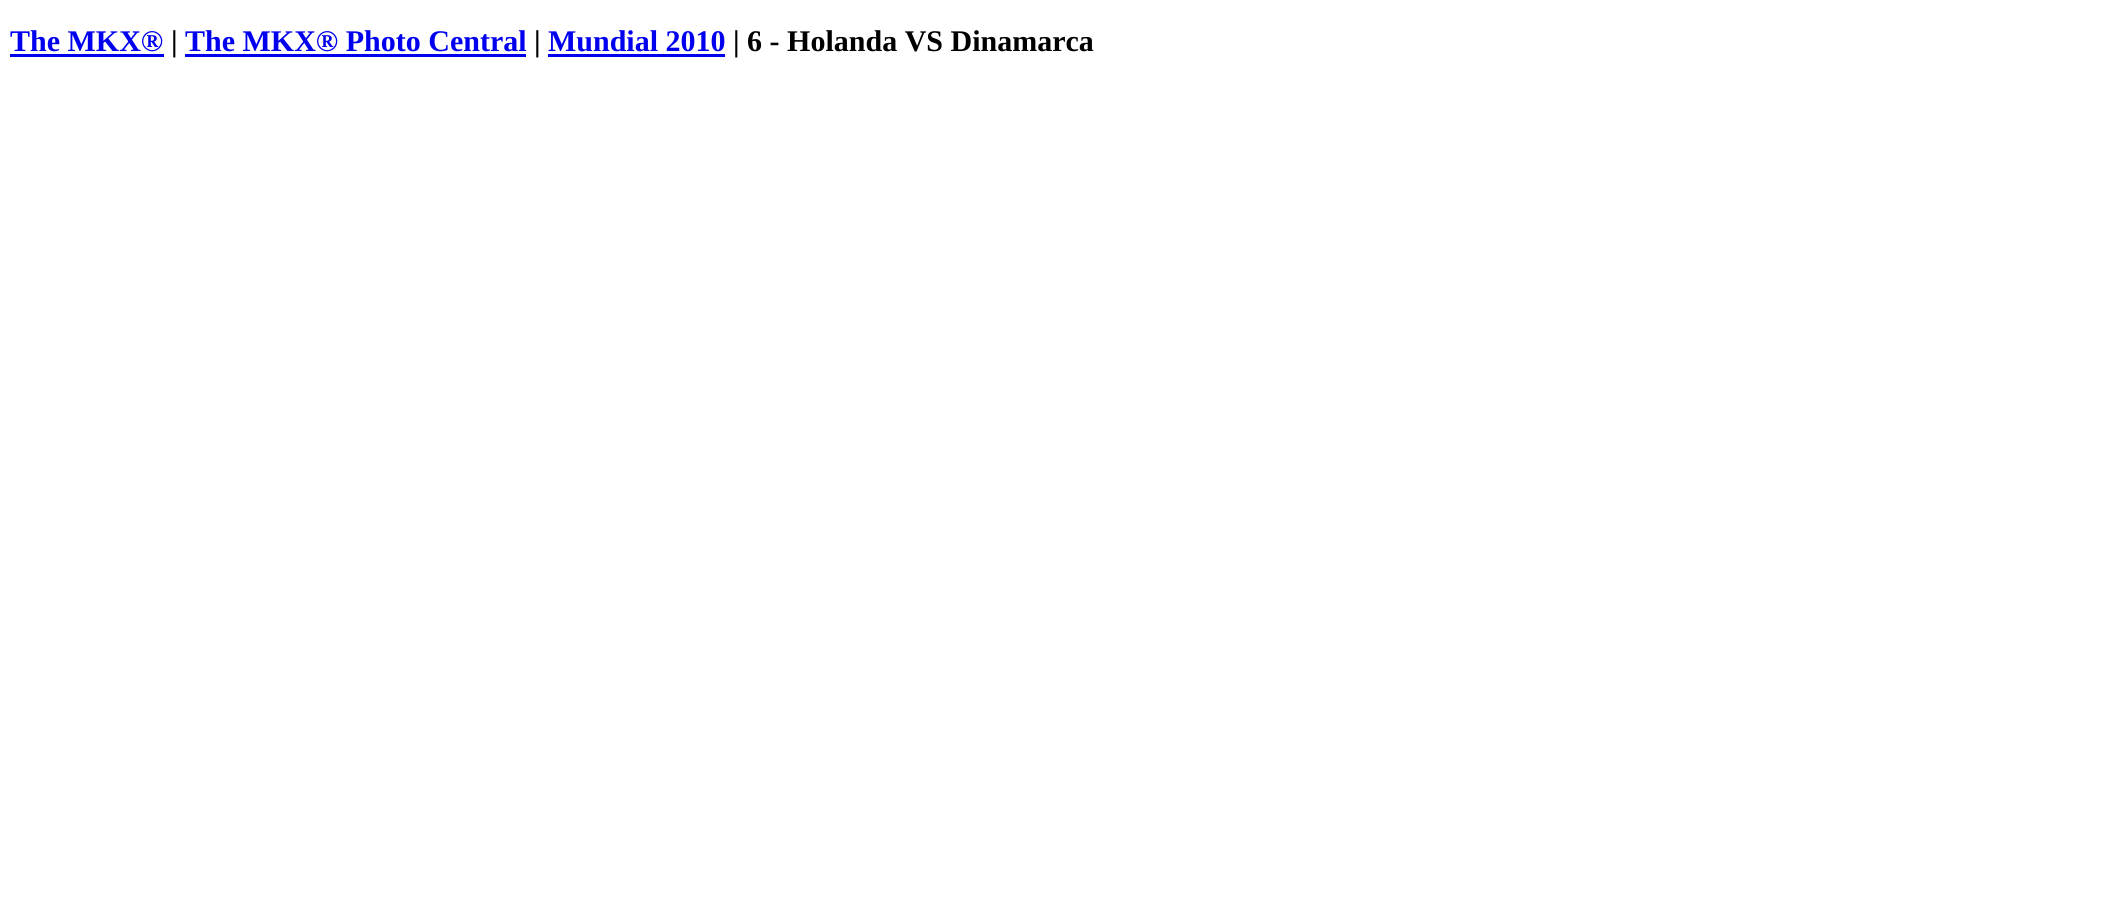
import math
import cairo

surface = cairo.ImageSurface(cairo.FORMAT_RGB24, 2106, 903)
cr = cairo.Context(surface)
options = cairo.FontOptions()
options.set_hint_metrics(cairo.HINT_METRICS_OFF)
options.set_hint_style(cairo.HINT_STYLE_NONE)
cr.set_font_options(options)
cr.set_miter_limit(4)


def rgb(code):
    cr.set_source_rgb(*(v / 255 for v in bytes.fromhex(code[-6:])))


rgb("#ffffff")
cr.paint()
for x, y, w, h, color in [
    (10, 54, 154, 3, "#0000ee"),
    (185, 54, 341, 3, "#0000ee"),
    (548, 54, 177, 3, "#0000ee"),
]:
    rgb(color)
    cr.rectangle(x, y, w, h)
    cr.fill()
cr.select_font_face("Liberation Serif", cairo.FONT_SLANT_NORMAL, cairo.FONT_WEIGHT_BOLD)
cr.set_font_size(30)
cr.move_to(10, 51)
cr.show_text("The MKX®")
rgb("#000000")
cr.move_to(171, 51)
cr.show_text("|")
rgb("#0000ee")
cr.move_to(185, 51)
cr.show_text("The MKX® Photo Central")
rgb("#000000")
cr.move_to(534, 51)
cr.show_text("|")
rgb("#0000ee")
cr.move_to(548, 51)
cr.show_text("Mundial 2010")
rgb("#000000")
cr.move_to(733, 51)
cr.show_text("| 6 - Holanda VS Dinamarca")
surface.write_to_png("page.png")
